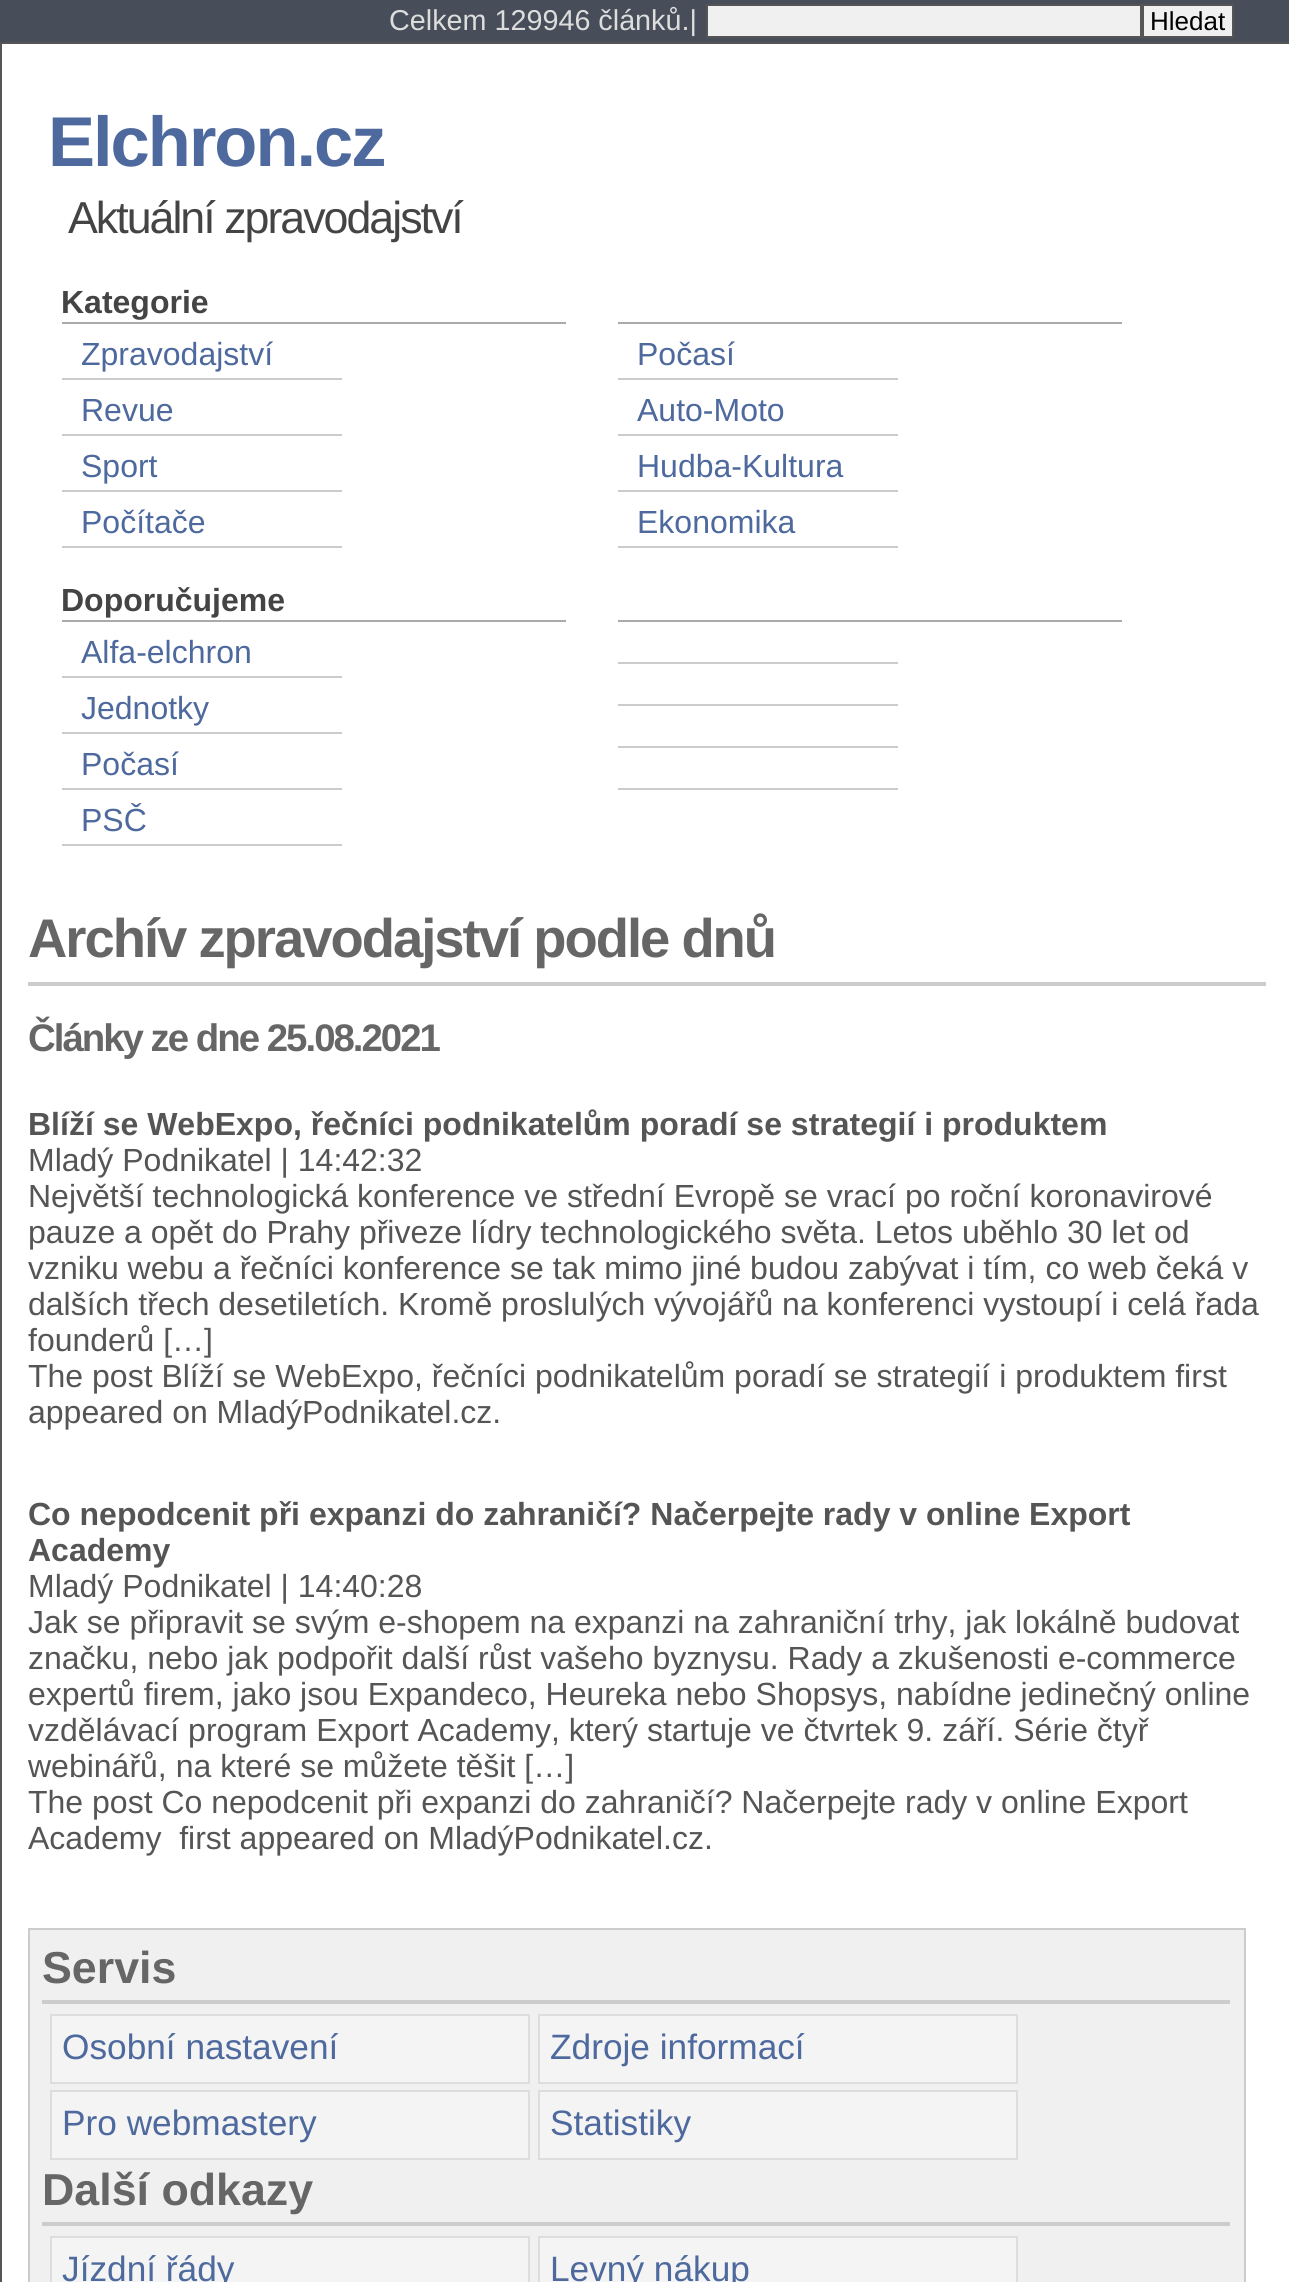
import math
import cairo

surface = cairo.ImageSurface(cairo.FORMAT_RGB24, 1289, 2282)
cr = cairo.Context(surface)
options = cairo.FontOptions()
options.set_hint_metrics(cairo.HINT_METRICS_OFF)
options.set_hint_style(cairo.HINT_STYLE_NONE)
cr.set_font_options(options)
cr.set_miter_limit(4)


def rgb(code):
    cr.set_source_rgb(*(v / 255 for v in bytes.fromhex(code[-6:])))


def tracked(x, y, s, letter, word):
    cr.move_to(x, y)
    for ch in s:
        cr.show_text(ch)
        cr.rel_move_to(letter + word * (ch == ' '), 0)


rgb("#474d59")
cr.paint()
rgb("#f0f0f0")
cr.rectangle(707, 5, 434, 32)
cr.fill_preserve()
rgb("#555555")
cr.stroke()
rgb("#f0f0f0")
cr.rectangle(1143, 5, 90, 32)
cr.fill_preserve()
rgb("#555555")
cr.stroke()
rgb("#ffffff")
cr.rectangle(1, 43, 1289, 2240)
cr.fill_preserve()
rgb("#555555")
cr.stroke()
for x, y, w, h, color in [
    (62, 322, 504, 2, "#aaaaaa"),
    (62, 378, 280, 2, "#cccccc"),
    (62, 434, 280, 2, "#cccccc"),
    (62, 490, 280, 2, "#cccccc"),
    (62, 546, 280, 2, "#cccccc"),
    (618, 322, 504, 2, "#aaaaaa"),
    (618, 378, 280, 2, "#cccccc"),
    (618, 434, 280, 2, "#cccccc"),
    (618, 490, 280, 2, "#cccccc"),
    (618, 546, 280, 2, "#cccccc"),
    (62, 620, 504, 2, "#aaaaaa"),
    (62, 676, 280, 2, "#cccccc"),
    (62, 732, 280, 2, "#cccccc"),
    (62, 788, 280, 2, "#cccccc"),
    (62, 844, 280, 2, "#cccccc"),
    (618, 620, 504, 2, "#aaaaaa"),
    (618, 662, 280, 2, "#cccccc"),
    (618, 704, 280, 2, "#cccccc"),
    (618, 746, 280, 2, "#cccccc"),
    (618, 788, 280, 2, "#cccccc"),
    (28, 982, 1238, 4, "#cccccc"),
]:
    rgb(color)
    cr.rectangle(x, y, w, h)
    cr.fill()
rgb("#f0f0f0")
cr.rectangle(29, 1929, 1216, 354)
cr.fill_preserve()
rgb("#cccccc")
cr.stroke()
cr.rectangle(42, 2000, 1188, 4)
cr.fill()
rgb("#f4f4f4")
cr.rectangle(51, 2015, 478, 68)
cr.fill_preserve()
rgb("#dddddd")
cr.stroke()
rgb("#f4f4f4")
cr.rectangle(539, 2015, 478, 68)
cr.fill_preserve()
rgb("#dddddd")
cr.stroke()
rgb("#f4f4f4")
cr.rectangle(51, 2091, 478, 68)
cr.fill_preserve()
rgb("#dddddd")
cr.stroke()
rgb("#f4f4f4")
cr.rectangle(539, 2091, 478, 68)
cr.fill_preserve()
rgb("#dddddd")
cr.stroke()
rgb("#cccccc")
cr.rectangle(42, 2222, 1188, 4)
cr.fill()
rgb("#f4f4f4")
cr.rectangle(51, 2237, 478, 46)
cr.fill_preserve()
rgb("#dddddd")
cr.stroke()
rgb("#f4f4f4")
cr.rectangle(539, 2237, 478, 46)
cr.fill_preserve()
rgb("#dddddd")
cr.stroke()
cr.select_font_face("Liberation Sans")
cr.set_font_size(28.75)
cr.move_to(389, 30)
cr.show_text("Celkem 129946 článků.|")
cr.set_font_size(26)
rgb("#000000")
cr.move_to(1150, 30)
cr.show_text("Hledat")
cr.select_font_face("Liberation Sans", cairo.FONT_SLANT_NORMAL, cairo.FONT_WEIGHT_BOLD)
cr.set_font_size(70.5)
rgb("#4d699d")
tracked(48, 166, "Elchron.cz", -2, 0)
cr.select_font_face("Liberation Sans")
cr.set_font_size(44.75)
rgb("#444444")
tracked(68, 233, "Aktuální zpravodajství", -2, 0)
cr.select_font_face("Liberation Sans", cairo.FONT_SLANT_NORMAL, cairo.FONT_WEIGHT_BOLD)
cr.set_font_size(32)
cr.move_to(61, 313)
cr.show_text("Kategorie")
cr.select_font_face("Liberation Sans")
rgb("#4d699d")
for x, y, s in [
    (81, 365, "Zpravodajství"),
    (81, 421, "Revue"),
    (81, 477, "Sport"),
    (81, 533, "Počítače"),
    (637, 365, "Počasí"),
    (637, 421, "Auto-Moto"),
    (637, 477, "Hudba-Kultura"),
    (637, 533, "Ekonomika"),
]:
    cr.move_to(x, y)
    cr.show_text(s)
cr.select_font_face("Liberation Sans", cairo.FONT_SLANT_NORMAL, cairo.FONT_WEIGHT_BOLD)
rgb("#444444")
cr.move_to(61, 611)
cr.show_text("Doporučujeme")
cr.select_font_face("Liberation Sans")
rgb("#4d699d")
for x, y, s in [
    (81, 663, "Alfa-elchron"),
    (81, 719, "Jednotky"),
    (81, 775, "Počasí"),
    (81, 831, "PSČ"),
]:
    cr.move_to(x, y)
    cr.show_text(s)
cr.select_font_face("Liberation Sans", cairo.FONT_SLANT_NORMAL, cairo.FONT_WEIGHT_BOLD)
cr.set_font_size(54.4)
rgb("#666666")
tracked(28, 957, "Archív zpravodajství podle dnů", -2, 0)
cr.set_font_size(38.4)
tracked(28, 1051, "Články ze dne 25.08.2021", -2, 0)
cr.set_font_size(32)
rgb("#555555")
cr.move_to(28, 1135)
cr.show_text("Blíží se WebExpo, řečníci podnikatelům poradí se strategií i produktem")
cr.select_font_face("Liberation Sans")
for x, y, s in [
    (28, 1171, "Mladý Podnikatel | 14:42:32"),
    (28, 1207, "Největší technologická konference ve střední Evropě se vrací po roční koronavirové"),
    (28, 1243, "pauze a opět do Prahy přiveze lídry technologického světa. Letos uběhlo 30 let od"),
    (28, 1279, "vzniku webu a řečníci konference se tak mimo jiné budou zabývat i tím, co web čeká v"),
    (28, 1315, "dalších třech desetiletích. Kromě proslulých vývojářů na konferenci vystoupí i celá řada"),
    (28, 1351, "founderů […]"),
    (28, 1387, "The post Blíží se WebExpo, řečníci podnikatelům poradí se strategií i produktem first"),
    (28, 1423, "appeared on MladýPodnikatel.cz."),
]:
    cr.move_to(x, y)
    cr.show_text(s)
cr.select_font_face("Liberation Sans", cairo.FONT_SLANT_NORMAL, cairo.FONT_WEIGHT_BOLD)
cr.move_to(28, 1525)
cr.show_text("Co nepodcenit při expanzi do zahraničí? Načerpejte rady v online Export")
cr.move_to(28, 1561)
cr.show_text("Academy")
cr.select_font_face("Liberation Sans")
for x, y, s in [
    (28, 1597, "Mladý Podnikatel | 14:40:28"),
    (28, 1633, "Jak se připravit se svým e-shopem na expanzi na zahraniční trhy, jak lokálně budovat"),
    (28, 1669, "značku, nebo jak podpořit další růst vašeho byznysu. Rady a zkušenosti e-commerce"),
    (28, 1705, "expertů firem, jako jsou Expandeco, Heureka nebo Shopsys, nabídne jedinečný online"),
    (28, 1741, "vzdělávací program Export Academy, který startuje ve čtvrtek 9. září. Série čtyř"),
    (28, 1777, "webinářů, na které se můžete těšit […]"),
    (28, 1813, "The post Co nepodcenit při expanzi do zahraničí? Načerpejte rady v online Export"),
    (28, 1849, "Academy  first appeared on MladýPodnikatel.cz."),
]:
    cr.move_to(x, y)
    cr.show_text(s)
cr.select_font_face("Liberation Sans", cairo.FONT_SLANT_NORMAL, cairo.FONT_WEIGHT_BOLD)
cr.set_font_size(44.75)
rgb("#666666")
cr.move_to(42, 1983)
cr.show_text("Servis")
cr.select_font_face("Liberation Sans")
cr.set_font_size(35.25)
rgb("#4d699d")
for x, y, s in [
    (62, 2059, "Osobní nastavení"),
    (550, 2059, "Zdroje informací"),
    (62, 2135, "Pro webmastery"),
    (550, 2135, "Statistiky"),
]:
    cr.move_to(x, y)
    cr.show_text(s)
cr.select_font_face("Liberation Sans", cairo.FONT_SLANT_NORMAL, cairo.FONT_WEIGHT_BOLD)
cr.set_font_size(44.75)
rgb("#666666")
cr.move_to(42, 2205)
cr.show_text("Další odkazy")
cr.select_font_face("Liberation Sans")
cr.set_font_size(35.25)
rgb("#4d699d")
cr.move_to(62, 2281)
cr.show_text("Jízdní řády")
cr.move_to(550, 2281)
cr.show_text("Levný nákup")
surface.write_to_png("page.png")
